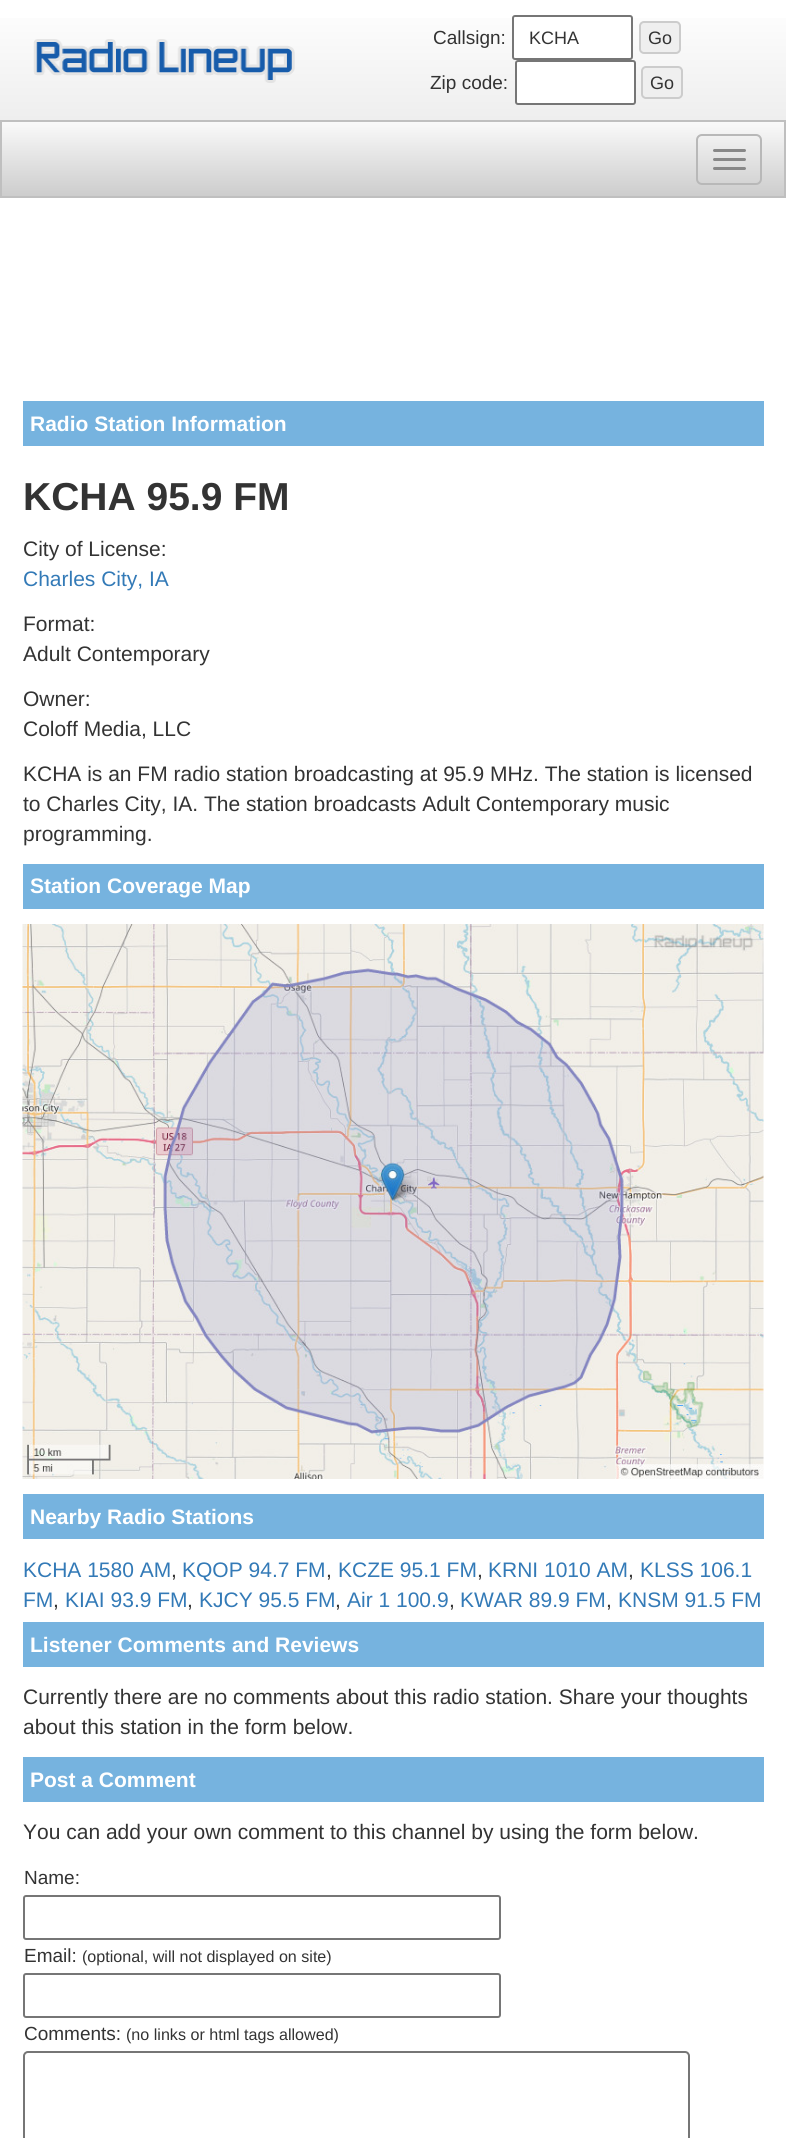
import math
import cairo

surface = cairo.ImageSurface(cairo.FORMAT_RGB24, 786, 2138)
cr = cairo.Context(surface)
options = cairo.FontOptions()
options.set_hint_metrics(cairo.HINT_METRICS_OFF)
options.set_hint_style(cairo.HINT_STYLE_NONE)
cr.set_font_options(options)
cr.set_miter_limit(4)


def rgb(code):
    cr.set_source_rgb(*(v / 255 for v in bytes.fromhex(code[-6:])))


def rrect(x, y, w, h, r):
    cr.new_sub_path()
    for i, (u, v) in enumerate([(x + w - r, y + h - r), (x + r, y + h - r), (x + r, y + r), (x + w - r, y + r)]):
        cr.arc(u, v, r, i * math.pi / 2, (i + 1) * math.pi / 2)
    cr.close_path()


def image(path, x, y, w, h):
    cr.save()
    cr.set_source_surface(cairo.ImageSurface.create_from_png(path), x, y)
    cr.rectangle(x, y, w, h)
    cr.fill()
    cr.restore()


rgb("#ffffff")
cr.paint()
gradient = cairo.LinearGradient(393, 0, 393, 120)
gradient.add_color_stop_rgba(0, 1, 1, 1, 1)
gradient.add_color_stop_rgba(1, 0.933, 0.933, 0.933, 1)
cr.set_source(gradient)
cr.rectangle(0, 18, 786, 102)
cr.fill()
image("img/1.png", 33, 39, 262, 44)
rgb("#ffffff")
rrect(513, 16, 119, 43, 2)
cr.fill_preserve()
rgb("#767676")
cr.stroke()
rgb("#efefef")
rrect(640, 22, 40, 31, 4)
cr.fill_preserve()
rgb("#cccccc")
cr.stroke()
rgb("#ffffff")
rrect(516, 61, 119, 43, 2)
cr.fill_preserve()
rgb("#767676")
cr.stroke()
rgb("#efefef")
rrect(642, 67, 40, 31, 4)
cr.fill_preserve()
rgb("#cccccc")
cr.stroke()
gradient = cairo.LinearGradient(393, 121, 393, 197)
gradient.add_color_stop_rgba(0, 0.98, 0.98, 0.98, 1)
gradient.add_color_stop_rgba(1, 0.8, 0.8, 0.8, 1)
cr.set_source(gradient)
cr.rectangle(2, 122, 782, 74)
cr.fill()
cr.rectangle(1, 121, 784, 76)
rgb("#bfbfbf")
cr.stroke()
rrect(697, 135, 64, 49, 5)
rgb("#b8b8b8")
cr.stroke()
rgb("#888888")
rrect(713, 149, 33, 3, 1.5)
cr.fill()
rrect(713, 158, 33, 3, 1.5)
cr.fill()
rrect(713, 167, 33, 3, 1.5)
cr.fill()
rgb("#76b3df")
cr.rectangle(23, 401, 741, 45)
cr.fill()
cr.rectangle(23, 864, 741, 45)
cr.fill()
image("img/2.png", 22, 924, 742, 555)
for x, y, w, h, color in [
    (23, 1494, 741, 45, "#76b3df"),
    (23, 1622, 741, 45, "#76b3df"),
    (23, 1757, 741, 45, "#76b3df"),
]:
    rgb(color)
    cr.rectangle(x, y, w, h)
    cr.fill()
rrect(24, 1896, 476, 43, 2)
rgb("#767676")
cr.stroke()
rrect(24, 1974, 476, 43, 2)
cr.stroke()
rrect(24, 2052, 665, 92, 4)
cr.stroke()
cr.select_font_face("Liberation Sans")
cr.set_font_size(19)
rgb("#333333")
cr.move_to(433, 44)
cr.show_text("Callsign:")
cr.set_font_size(18)
cr.move_to(529, 44)
cr.show_text("KCHA")
cr.move_to(648, 44)
cr.show_text("Go")
cr.set_font_size(19)
cr.move_to(430, 89)
cr.show_text("Zip code:")
cr.set_font_size(18)
cr.move_to(650, 89)
cr.show_text("Go")
cr.select_font_face("Liberation Sans", cairo.FONT_SLANT_NORMAL, cairo.FONT_WEIGHT_BOLD)
cr.set_font_size(21)
rgb("#ffffff")
cr.move_to(30, 431)
cr.show_text("Radio Station Information")
cr.set_font_size(39)
rgb("#333333")
cr.move_to(23, 510)
cr.show_text("KCHA 95.9 FM")
cr.select_font_face("Liberation Sans")
cr.set_font_size(21)
cr.move_to(23, 556)
cr.show_text("City of License:")
rgb("#337ab7")
cr.move_to(23, 586)
cr.show_text("Charles City, IA")
rgb("#333333")
for x, y, s in [
    (23, 631, "Format:"),
    (23, 661, "Adult Contemporary"),
    (23, 706, "Owner:"),
    (23, 736, "Coloff Media, LLC"),
    (23, 781, "KCHA is an FM radio station broadcasting at 95.9 MHz. The station is licensed"),
    (23, 811, "to Charles City, IA. The station broadcasts Adult Contemporary music"),
    (23, 841, "programming."),
]:
    cr.move_to(x, y)
    cr.show_text(s)
cr.select_font_face("Liberation Sans", cairo.FONT_SLANT_NORMAL, cairo.FONT_WEIGHT_BOLD)
rgb("#ffffff")
cr.move_to(30, 893)
cr.show_text("Station Coverage Map")
cr.move_to(30, 1524)
cr.show_text("Nearby Radio Stations")
cr.select_font_face("Liberation Sans")
rgb("#337ab7")
cr.move_to(23, 1577)
cr.show_text("KCHA 1580 AM")
rgb("#333333")
cr.move_to(171, 1577)
cr.show_text(",")
rgb("#337ab7")
cr.move_to(182, 1577)
cr.show_text("KQOP 94.7 FM")
rgb("#333333")
cr.move_to(326, 1577)
cr.show_text(",")
rgb("#337ab7")
cr.move_to(338, 1577)
cr.show_text("KCZE 95.1 FM")
rgb("#333333")
cr.move_to(477, 1577)
cr.show_text(",")
rgb("#337ab7")
cr.move_to(488, 1577)
cr.show_text("KRNI 1010 AM")
rgb("#333333")
cr.move_to(628, 1577)
cr.show_text(",")
rgb("#337ab7")
cr.move_to(640, 1577)
cr.show_text("KLSS 106.1")
cr.move_to(23, 1607)
cr.show_text("FM")
rgb("#333333")
cr.move_to(53, 1607)
cr.show_text(",")
rgb("#337ab7")
cr.move_to(65, 1607)
cr.show_text("KIAI 93.9 FM")
rgb("#333333")
cr.move_to(187, 1607)
cr.show_text(",")
rgb("#337ab7")
cr.move_to(199, 1607)
cr.show_text("KJCY 95.5 FM")
rgb("#333333")
cr.move_to(335, 1607)
cr.show_text(",")
rgb("#337ab7")
cr.move_to(347, 1607)
cr.show_text("Air 1 100.9")
rgb("#333333")
cr.move_to(449, 1607)
cr.show_text(",")
rgb("#337ab7")
cr.move_to(460, 1607)
cr.show_text("KWAR 89.9 FM")
rgb("#333333")
cr.move_to(606, 1607)
cr.show_text(",")
rgb("#337ab7")
cr.move_to(618, 1607)
cr.show_text("KNSM 91.5 FM")
cr.select_font_face("Liberation Sans", cairo.FONT_SLANT_NORMAL, cairo.FONT_WEIGHT_BOLD)
rgb("#ffffff")
cr.move_to(30, 1652)
cr.show_text("Listener Comments and Reviews")
cr.select_font_face("Liberation Sans")
rgb("#333333")
cr.move_to(23, 1704)
cr.show_text("Currently there are no comments about this radio station. Share your thoughts")
cr.move_to(23, 1734)
cr.show_text("about this station in the form below.")
cr.select_font_face("Liberation Sans", cairo.FONT_SLANT_NORMAL, cairo.FONT_WEIGHT_BOLD)
rgb("#ffffff")
cr.move_to(30, 1787)
cr.show_text("Post a Comment")
cr.select_font_face("Liberation Sans")
rgb("#333333")
cr.move_to(23, 1839)
cr.show_text("You can add your own comment to this channel by using the form below.")
cr.set_font_size(19)
cr.move_to(24, 1884)
cr.show_text("Name:")
cr.move_to(24, 1962)
cr.show_text("Email:")
cr.set_font_size(16.1)
cr.move_to(82, 1962)
cr.show_text("(optional, will not displayed on site)")
cr.set_font_size(19)
cr.move_to(24, 2040)
cr.show_text("Comments:")
cr.set_font_size(16.1)
cr.move_to(126, 2040)
cr.show_text("(no links or html tags allowed)")
surface.write_to_png("page.png")
